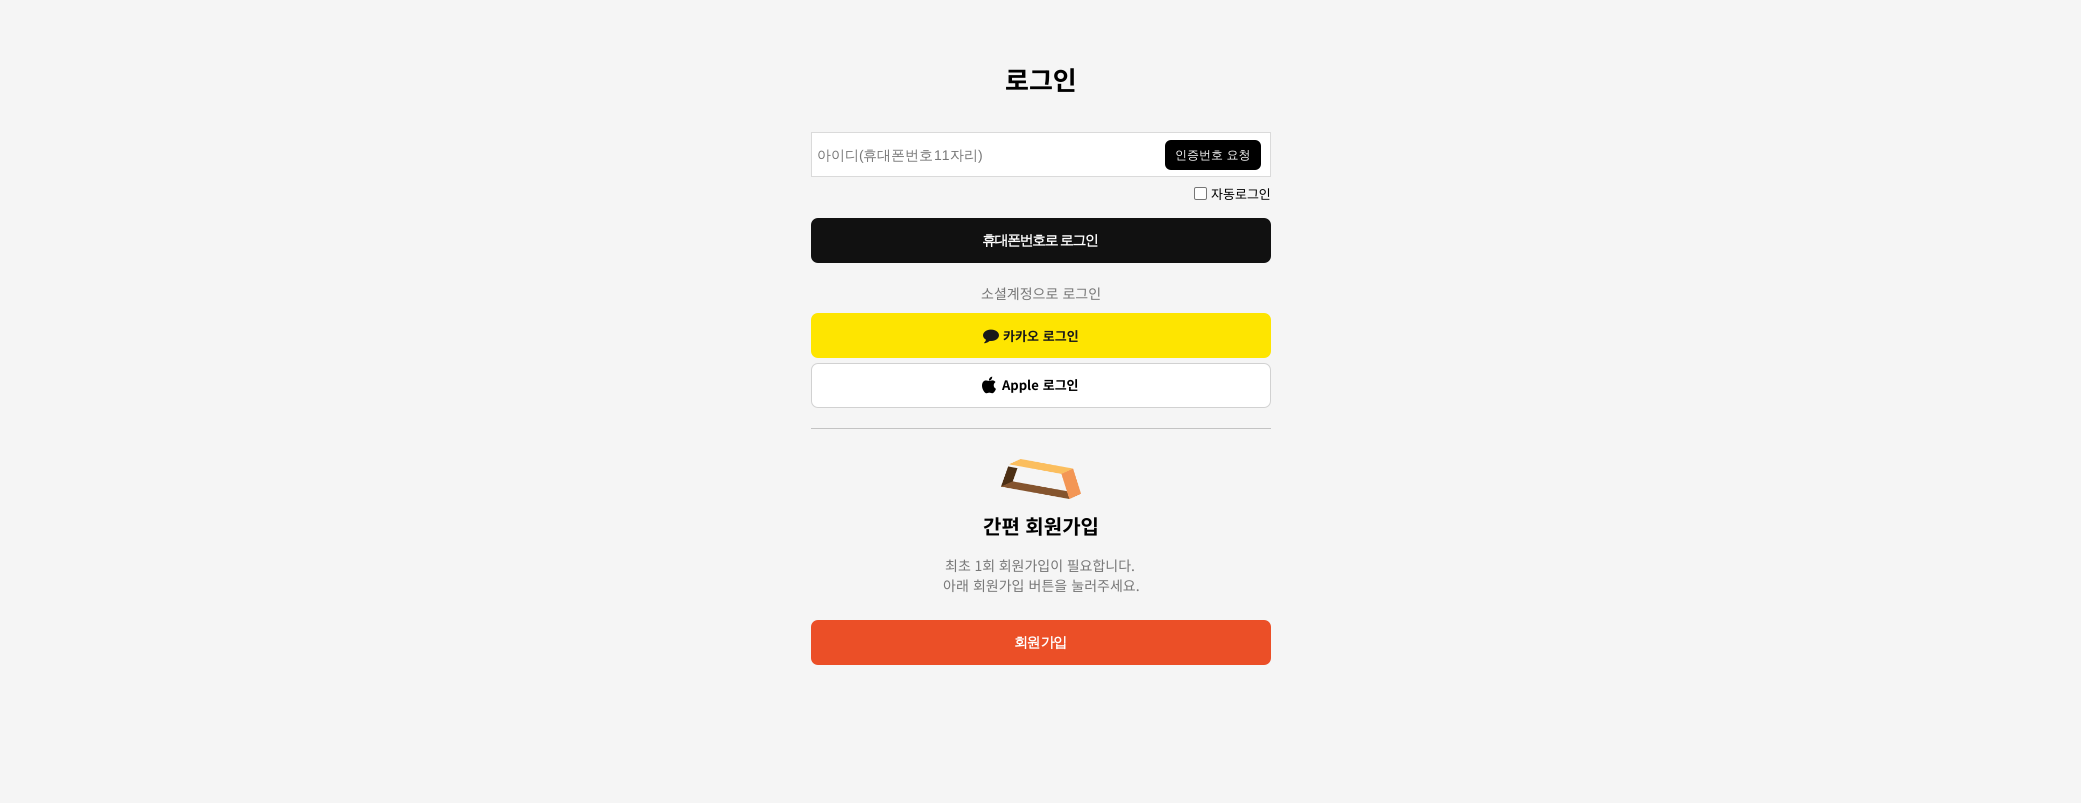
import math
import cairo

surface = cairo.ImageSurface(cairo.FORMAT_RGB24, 2081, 803)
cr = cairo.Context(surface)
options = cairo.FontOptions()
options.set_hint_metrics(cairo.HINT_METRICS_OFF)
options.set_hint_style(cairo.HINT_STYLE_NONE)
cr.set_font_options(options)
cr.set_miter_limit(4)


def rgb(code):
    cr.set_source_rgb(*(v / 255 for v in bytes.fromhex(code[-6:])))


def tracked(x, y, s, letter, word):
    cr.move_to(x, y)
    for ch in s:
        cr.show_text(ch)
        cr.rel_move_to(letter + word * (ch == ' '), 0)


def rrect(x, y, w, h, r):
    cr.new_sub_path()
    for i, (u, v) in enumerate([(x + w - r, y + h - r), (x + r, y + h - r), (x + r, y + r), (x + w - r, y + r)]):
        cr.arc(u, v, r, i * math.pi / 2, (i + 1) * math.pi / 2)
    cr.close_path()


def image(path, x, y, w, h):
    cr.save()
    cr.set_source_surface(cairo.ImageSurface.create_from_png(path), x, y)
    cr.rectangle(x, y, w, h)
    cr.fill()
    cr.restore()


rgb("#f5f5f5")
cr.paint()
rgb("#ffffff")
cr.rectangle(811.5, 132.5, 459, 44)
cr.fill_preserve()
rgb("#dadada")
cr.set_line_width(1)
cr.stroke()
rgb("#000000")
rrect(1165, 140, 96, 30, 6)
cr.fill()
rgb("#ffffff")
rrect(1194.5, 187.5, 12, 12, 1.5)
cr.fill_preserve()
rgb("#767676")
cr.stroke()
rgb("#111111")
rrect(811, 218, 460, 45, 7)
cr.fill()
rgb("#fee500")
rrect(811, 313, 460, 45, 7)
cr.fill()
image("img/1.png", 983, 329, 16, 15)
rgb("#ffffff")
rrect(811.5, 363.5, 459, 44, 6.5)
cr.fill_preserve()
rgb("#d1d1d1")
cr.stroke()
image("img/2.png", 982, 376, 14, 18)
rgb("#c3c3c3")
cr.rectangle(811, 428, 460, 1)
cr.fill()
image("img/3.png", 1001, 459, 80, 40)
rgb("#eb4f27")
rrect(811, 620, 460, 45, 7)
cr.fill()
cr.select_font_face("Noto Sans KR", cairo.FONT_SLANT_NORMAL, cairo.FONT_WEIGHT_BOLD)
cr.set_font_size(26)
rgb("#000000")
cr.move_to(1005, 90)
cr.show_text("로그인")
cr.select_font_face("WenQuanYi Zen Hei Medium")
cr.set_font_size(14)
rgb("#777777")
cr.move_to(817, 160)
cr.show_text("아이디")
cr.select_font_face("Liberation Sans")
cr.move_to(859, 160)
cr.show_text("(")
cr.select_font_face("WenQuanYi Zen Hei Medium")
cr.move_to(863, 160)
cr.show_text("휴대폰번호")
cr.select_font_face("Liberation Sans")
cr.move_to(934, 160)
cr.show_text("11")
cr.select_font_face("WenQuanYi Zen Hei Medium")
cr.move_to(950, 160)
cr.show_text("자리")
cr.select_font_face("Liberation Sans")
cr.move_to(978, 160)
cr.show_text(")")
cr.select_font_face("WenQuanYi Zen Hei Medium")
cr.set_font_size(12)
rgb("#ffffff")
cr.move_to(1175, 159)
cr.show_text("인증번호 요청")
cr.select_font_face("Noto Sans KR")
cr.set_font_size(13)
rgb("#000000")
cr.move_to(1211, 199)
cr.show_text("자동로그인")
cr.select_font_face("WenQuanYi Zen Hei", cairo.FONT_SLANT_NORMAL, cairo.FONT_WEIGHT_BOLD)
cr.set_font_size(14)
rgb("#ffffff")
tracked(982, 245, "휴대폰번호로 로그인", -1.5, 0)
cr.select_font_face("Noto Sans KR")
rgb("#777777")
tracked(981, 299, "소셜계정으로 로그인", 0, 1)
cr.select_font_face("Noto Sans KR", cairo.FONT_SLANT_NORMAL, cairo.FONT_WEIGHT_BOLD)
cr.set_font_size(13)
rgb("#191919")
tracked(1003, 341, "카카오 로그인", 0, 1)
rgb("#000000")
tracked(1002, 390, "Apple 로그인", 0, 1)
cr.set_font_size(20)
tracked(983, 534, "간편 회원가입", 0, 1)
cr.select_font_face("Noto Sans KR")
cr.set_font_size(14)
rgb("#777777")
tracked(945, 571, "최초 1회 회원가입이 필요합니다.", 0, 0.5)
tracked(943, 591, "아래 회원가입 버튼을 눌러주세요.", 0, 1)
cr.select_font_face("WenQuanYi Zen Hei", cairo.FONT_SLANT_NORMAL, cairo.FONT_WEIGHT_BOLD)
rgb("#ffffff")
tracked(1014, 647, "회원 가입", -1.5, -1)
surface.write_to_png("page.png")
